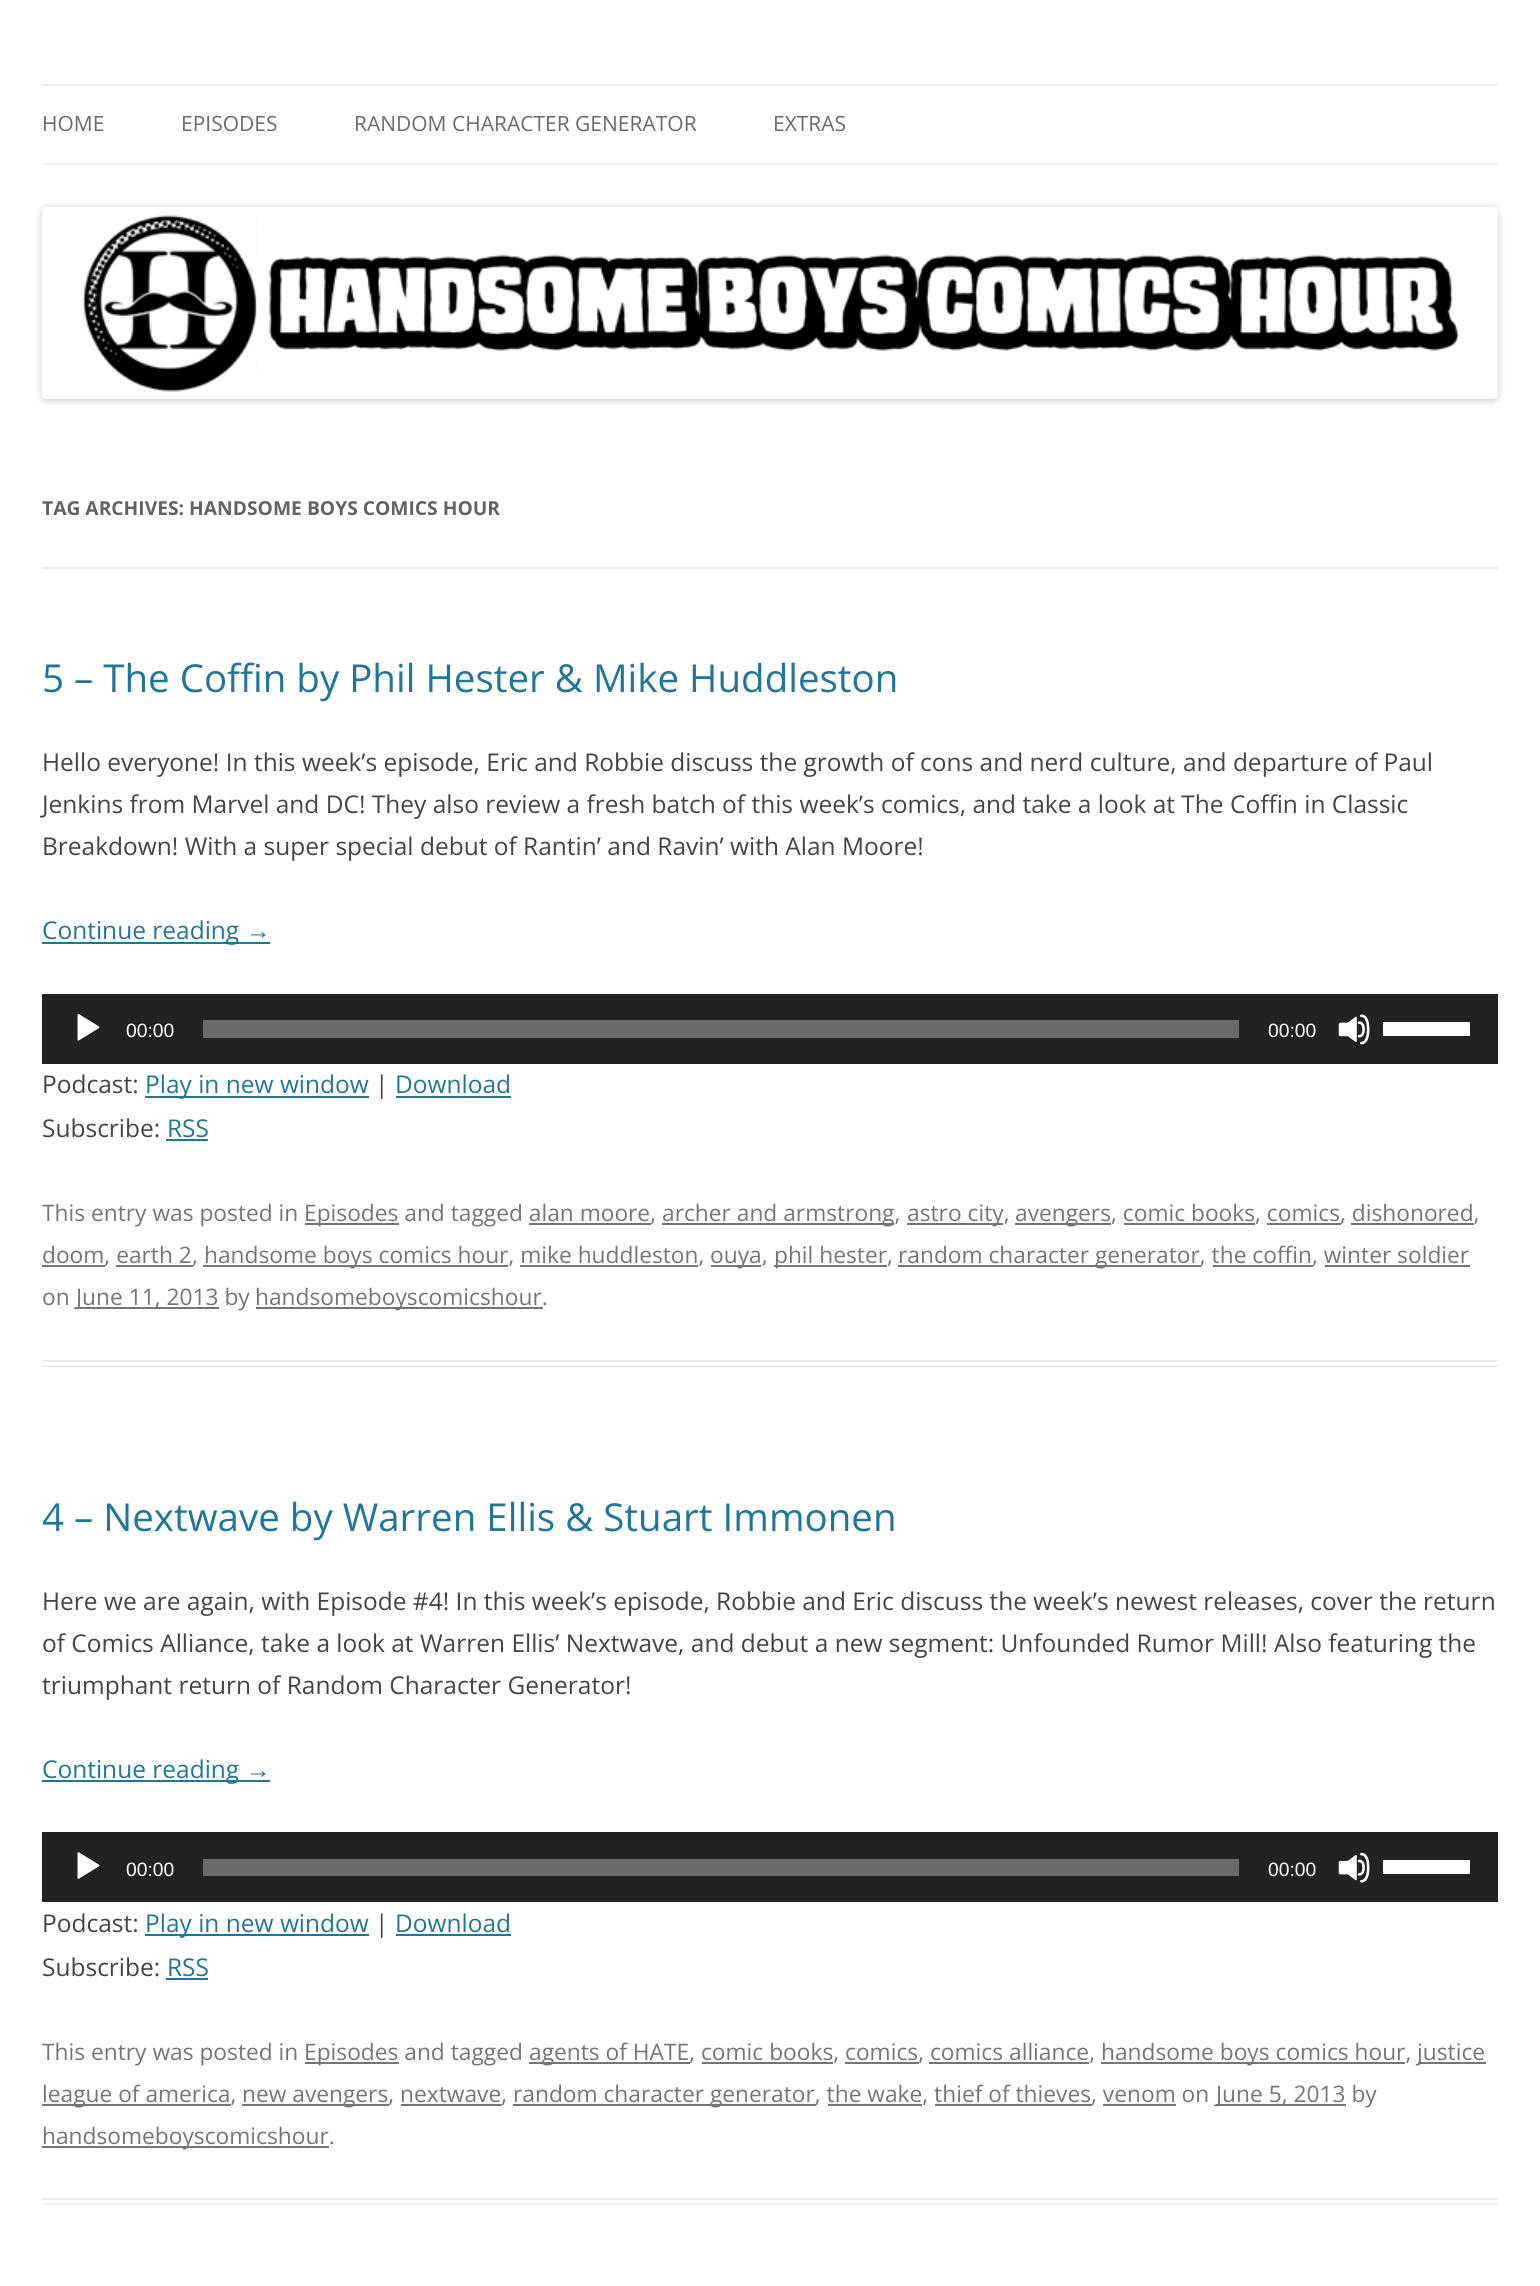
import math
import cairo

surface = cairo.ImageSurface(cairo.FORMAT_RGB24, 1540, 2286)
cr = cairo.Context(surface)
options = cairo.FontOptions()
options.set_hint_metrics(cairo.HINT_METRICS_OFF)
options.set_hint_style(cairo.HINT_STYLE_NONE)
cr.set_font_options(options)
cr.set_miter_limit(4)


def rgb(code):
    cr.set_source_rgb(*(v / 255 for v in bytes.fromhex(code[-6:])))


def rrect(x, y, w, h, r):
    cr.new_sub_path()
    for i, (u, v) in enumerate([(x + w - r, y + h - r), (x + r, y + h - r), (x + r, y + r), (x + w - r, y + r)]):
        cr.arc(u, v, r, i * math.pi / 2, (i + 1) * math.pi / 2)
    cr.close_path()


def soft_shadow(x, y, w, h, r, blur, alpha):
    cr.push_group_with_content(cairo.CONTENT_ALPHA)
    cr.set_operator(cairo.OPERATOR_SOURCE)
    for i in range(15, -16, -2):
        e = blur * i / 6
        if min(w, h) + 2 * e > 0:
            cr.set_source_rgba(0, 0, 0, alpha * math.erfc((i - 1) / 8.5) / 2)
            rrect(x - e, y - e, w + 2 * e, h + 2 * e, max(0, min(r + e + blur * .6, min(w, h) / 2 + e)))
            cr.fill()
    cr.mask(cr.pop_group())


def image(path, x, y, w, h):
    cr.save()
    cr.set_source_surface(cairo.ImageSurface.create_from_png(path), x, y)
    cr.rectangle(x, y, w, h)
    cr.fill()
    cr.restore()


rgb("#ffffff")
cr.paint()
rgb("#ededed")
cr.rectangle(42, 84, 1456, 2)
cr.fill()
cr.rectangle(42, 163, 1456, 2)
cr.fill()
cr.save()
cr.set_fill_rule(cairo.FILL_RULE_EVEN_ODD)
cr.new_path()
cr.move_to(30, 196)
cr.line_to(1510, 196)
cr.line_to(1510, 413)
cr.line_to(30, 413)
cr.close_path()
cr.move_to(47, 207)
cr.line_to(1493, 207)
cr.curve_to(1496, 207, 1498, 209, 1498, 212)
cr.line_to(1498, 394)
cr.curve_to(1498, 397, 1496, 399, 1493, 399)
cr.line_to(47, 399)
cr.curve_to(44, 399, 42, 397, 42, 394)
cr.line_to(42, 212)
cr.curve_to(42, 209, 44, 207, 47, 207)
cr.close_path()
cr.clip()
rgb("#000000")
soft_shadow(42, 208, 1456, 193, 5, 3.5, 0.2)
cr.restore()
image("img/1.png", 42, 215, 1456, 184)
for x, y, w, h, color in [
    (42, 567, 1456, 2, "#ededed"),
    (42, 1360, 1456, 2, "#ededed"),
    (42, 1365, 1456, 2, "#ededed"),
    (42, 942, 228, 2, "#21759b"),
    (42, 994, 1456, 70, "#222222"),
]:
    rgb(color)
    cr.rectangle(x, y, w, h)
    cr.fill()
image("img/2.png", 77, 1013, 23, 28)
rgb("#6b6b6b")
cr.rectangle(203, 1020, 1036, 18)
cr.fill()
image("img/3.png", 1338, 1014, 32, 31)
for x, y, w, h, color in [
    (1383, 1022, 87, 14, "#ffffff"),
    (145, 1096, 224, 2, "#21759b"),
    (396, 1096, 115, 2, "#21759b"),
    (166, 1139, 42, 2, "#21759b"),
    (305, 1223, 94, 2, "#757575"),
    (662, 1223, 232, 2, "#757575"),
    (907, 1223, 96, 2, "#757575"),
    (1015, 1223, 96, 2, "#757575"),
    (529, 1223, 122, 2, "#757575"),
    (1124, 1223, 131, 2, "#757575"),
    (1267, 1223, 74, 2, "#757575"),
    (1351, 1223, 123, 2, "#757575"),
    (42, 1265, 63, 2, "#757575"),
    (203, 1265, 305, 2, "#757575"),
    (711, 1265, 50, 2, "#757575"),
    (774, 1265, 113, 2, "#757575"),
    (898, 1265, 303, 2, "#757575"),
    (116, 1265, 77, 2, "#757575"),
    (520, 1265, 178, 2, "#757575"),
    (1213, 1265, 100, 2, "#757575"),
    (1325, 1265, 145, 2, "#757575"),
    (75, 1307, 144, 2, "#757575"),
    (256, 1307, 287, 2, "#757575"),
    (42, 2198, 1456, 2, "#ededed"),
    (42, 2203, 1456, 2, "#ededed"),
    (42, 1780, 228, 2, "#21759b"),
    (42, 1832, 1456, 70, "#222222"),
]:
    rgb(color)
    cr.rectangle(x, y, w, h)
    cr.fill()
image("img/4.png", 77, 1852, 23, 27)
rgb("#6b6b6b")
cr.rectangle(203, 1859, 1036, 17)
cr.fill()
image("img/5.png", 1338, 1852, 32, 31)
for x, y, w, h, color in [
    (1383, 1860, 87, 14, "#ffffff"),
    (145, 1934, 224, 2, "#21759b"),
    (396, 1934, 115, 2, "#21759b"),
    (166, 1978, 42, 2, "#21759b"),
    (305, 2062, 94, 2, "#757575"),
    (529, 2062, 161, 2, "#757575"),
    (1101, 2062, 304, 2, "#757575"),
    (1418, 2062, 68, 2, "#757575"),
    (702, 2062, 131, 2, "#757575"),
    (845, 2062, 74, 2, "#757575"),
    (929, 2062, 160, 2, "#757575"),
    (42, 2104, 189, 2, "#757575"),
    (242, 2104, 147, 2, "#757575"),
    (513, 2104, 303, 2, "#757575"),
    (1216, 2104, 130, 2, "#757575"),
    (401, 2104, 101, 2, "#757575"),
    (828, 2104, 94, 2, "#757575"),
    (935, 2104, 157, 2, "#757575"),
    (1103, 2104, 73, 2, "#757575"),
    (42, 2146, 287, 2, "#757575"),
]:
    rgb(color)
    cr.rectangle(x, y, w, h)
    cr.fill()
cr.select_font_face("Open Sans")
cr.set_font_size(21)
rgb("#6a6a6a")
for x, y, s in [
    (42, 131, "HOME"),
    (181, 131, "EPISODES"),
    (354, 131, "RANDOM CHARACTER GENERATOR"),
    (773, 131, "EXTRAS"),
]:
    cr.move_to(x, y)
    cr.show_text(s)
cr.select_font_face("Open Sans", cairo.FONT_SLANT_NORMAL, cairo.FONT_WEIGHT_BOLD)
cr.set_font_size(19.25)
rgb("#636363")
cr.move_to(42, 515)
cr.show_text("TAG ARCHIVES: HANDSOME BOYS COMICS HOUR")
cr.select_font_face("Open Sans")
cr.set_font_size(38.5)
rgb("#21759b")
cr.move_to(42, 692)
cr.show_text("5 – The Coffin by Phil Hester & Mike Huddleston")
cr.set_font_size(24.5)
rgb("#444444")
for x, y, s in [
    (42, 771, "Hello everyone! In this week’s episode, Eric and Robbie discuss the growth of cons and nerd culture, and departure of Paul"),
    (42, 813, "Jenkins from Marvel and DC! They also review a fresh batch of this week’s comics, and take a look at The Coffin in Classic"),
    (42, 855, "Breakdown! With a super special debut of Rantin’ and Ravin’ with Alan Moore!"),
]:
    cr.move_to(x, y)
    cr.show_text(s)
rgb("#21759b")
cr.move_to(42, 939)
cr.show_text("Continue reading")
cr.select_font_face("Liberation Sans")
cr.move_to(246, 939)
cr.show_text("→")
cr.set_font_size(19.25)
rgb("#ffffff")
cr.move_to(126, 1037)
cr.show_text("00:00")
cr.move_to(1268, 1037)
cr.show_text("00:00")
cr.select_font_face("Open Sans")
cr.set_font_size(24.5)
rgb("#444444")
cr.move_to(42, 1093)
cr.show_text("Podcast:")
rgb("#21759b")
cr.move_to(145, 1093)
cr.show_text("Play in new window")
rgb("#444444")
cr.move_to(375, 1093)
cr.show_text("|")
rgb("#21759b")
cr.move_to(395, 1093)
cr.show_text("Download")
rgb("#444444")
cr.move_to(42, 1137)
cr.show_text("Subscribe:")
rgb("#21759b")
cr.move_to(167, 1137)
cr.show_text("RSS")
cr.set_font_size(22.75)
rgb("#757575")
for x, y, s in [
    (42, 1221, "This entry was posted in"),
    (304, 1221, "Episodes and tagged alan moore,"),
    (662, 1221, "archer and armstrong,"),
    (907, 1221, "astro city,"),
    (1015, 1221, "avengers, comic books, comics"),
    (1340, 1221, ", dishonored,"),
    (42, 1263, "doom, earth 2"),
    (192, 1263, ","),
    (204, 1263, "handsome boys comics hour, mike huddleston,"),
    (710, 1263, "ouya,"),
    (774, 1263, "phil hester,"),
    (898, 1263, "random character generator, the coffin, winter soldier"),
    (42, 1305, "on"),
    (76, 1305, "June 11, 2013 by"),
    (255, 1305, "handsomeboyscomicshour."),
]:
    cr.move_to(x, y)
    cr.show_text(s)
cr.set_font_size(38.5)
rgb("#21759b")
cr.move_to(42, 1531)
cr.show_text("4 – Nextwave by Warren Ellis & Stuart Immonen")
cr.set_font_size(24.5)
rgb("#444444")
for x, y, s in [
    (42, 1610, "Here we are again, with Episode #4! In this week’s episode, Robbie and Eric discuss the week’s newest releases, cover the return"),
    (42, 1652, "of Comics Alliance, take a look at Warren Ellis’ Nextwave, and debut a new segment: Unfounded Rumor Mill! Also featuring the"),
    (42, 1694, "triumphant return of Random Character Generator!"),
]:
    cr.move_to(x, y)
    cr.show_text(s)
rgb("#21759b")
cr.move_to(42, 1778)
cr.show_text("Continue reading")
cr.select_font_face("Liberation Sans")
cr.move_to(246, 1778)
cr.show_text("→")
cr.set_font_size(19.25)
rgb("#ffffff")
cr.move_to(126, 1876)
cr.show_text("00:00")
cr.move_to(1268, 1876)
cr.show_text("00:00")
cr.select_font_face("Open Sans")
cr.set_font_size(24.5)
rgb("#444444")
cr.move_to(42, 1932)
cr.show_text("Podcast:")
rgb("#21759b")
cr.move_to(145, 1932)
cr.show_text("Play in new window")
rgb("#444444")
cr.move_to(375, 1932)
cr.show_text("|")
rgb("#21759b")
cr.move_to(395, 1932)
cr.show_text("Download")
rgb("#444444")
cr.move_to(42, 1976)
cr.show_text("Subscribe:")
rgb("#21759b")
cr.move_to(167, 1976)
cr.show_text("RSS")
cr.set_font_size(22.75)
rgb("#757575")
for x, y, s in [
    (42, 2060, "This entry was posted in"),
    (304, 2060, "Episodes and tagged"),
    (529, 2060, "agents of HATE, comic books, comics, comics alliance,"),
    (1101, 2060, "handsome boys comics hour,"),
    (1417, 2060, "justice"),
    (42, 2102, "league of america,"),
    (242, 2102, "new avengers, nextwave,"),
    (513, 2102, "random character generator, the wake, thief of thieves, venom on"),
    (1216, 2102, "June 5, 2013 by"),
    (42, 2144, "handsomeboyscomicshour."),
]:
    cr.move_to(x, y)
    cr.show_text(s)
surface.write_to_png("page.png")
